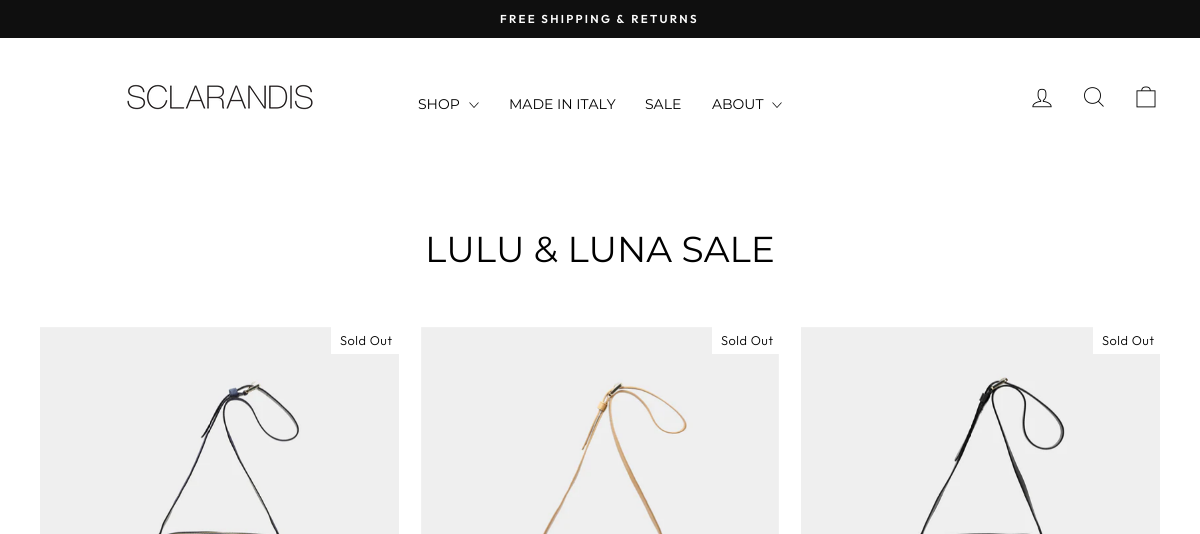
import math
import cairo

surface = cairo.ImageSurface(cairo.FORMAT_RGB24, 1200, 534)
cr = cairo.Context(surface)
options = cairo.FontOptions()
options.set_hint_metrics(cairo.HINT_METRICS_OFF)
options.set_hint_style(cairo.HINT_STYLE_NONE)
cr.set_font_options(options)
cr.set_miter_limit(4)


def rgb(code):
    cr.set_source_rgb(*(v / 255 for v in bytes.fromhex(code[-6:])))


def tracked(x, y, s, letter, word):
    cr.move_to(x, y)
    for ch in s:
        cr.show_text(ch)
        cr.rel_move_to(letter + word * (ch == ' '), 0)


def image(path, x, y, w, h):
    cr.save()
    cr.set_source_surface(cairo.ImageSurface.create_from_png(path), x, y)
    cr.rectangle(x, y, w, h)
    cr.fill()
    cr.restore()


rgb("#ffffff")
cr.paint()
rgb("#0f0f0f")
cr.rectangle(0, 0, 1200, 38)
cr.fill()
image("img/1.png", 127, 84, 186, 26)
cr.new_path()
cr.move_to(469.5, 102.5)
cr.line_to(474, 107.5)
cr.line_to(478.5, 102.5)
rgb("#000000")
cr.set_line_width(0.7)
cr.stroke()
cr.new_path()
cr.move_to(772.5, 102.5)
cr.line_to(777, 107.5)
cr.line_to(781.5, 102.5)
cr.stroke()
image("img/2.png", 1032, 88, 20, 20)
cr.new_path()
cr.move_to(1100.5, 95.5)
cr.curve_to(1100.5, 106, 1084.5, 106, 1084.5, 95.5)
cr.curve_to(1084.5, 85, 1100.5, 85, 1100.5, 95.5)
cr.close_path()
cr.move_to(1103.5, 106.5)
cr.line_to(1098.5, 101.5)
cr.set_line_width(0.9)
cr.stroke()
image("img/3.png", 1136, 86, 20, 22)
image("img/4.png", 40, 327, 359, 207)
rgb("#ffffff")
cr.rectangle(331, 327, 68, 27)
cr.fill()
image("img/5.png", 421, 327, 358, 207)
cr.rectangle(712, 327, 67, 27)
cr.fill()
image("img/6.png", 801, 327, 359, 207)
cr.rectangle(1093, 327, 67, 27)
cr.fill()
cr.select_font_face("Outfit SemiBold")
cr.set_font_size(11.5)
tracked(500, 23, "FREE SHIPPING & RETURNS", 2.25, 0)
cr.select_font_face("Montserrat")
cr.set_font_size(14)
rgb("#000000")
for x, y, s in [
    (418, 109, "SHOP"),
    (509, 109, "MADE IN ITALY"),
    (645, 109, "SALE"),
    (712, 109, "ABOUT"),
]:
    cr.move_to(x, y)
    cr.show_text(s)
cr.set_font_size(36)
cr.move_to(425, 262)
cr.show_text("LULU & LUNA SALE")
cr.select_font_face("Outfit Light")
cr.set_font_size(12.75)
for x, y, s in [
    (340, 345, "Sold Out"),
    (721, 345, "Sold Out"),
    (1102, 345, "Sold Out"),
]:
    tracked(x, y, s, 0.5, 0)
surface.write_to_png("page.png")
